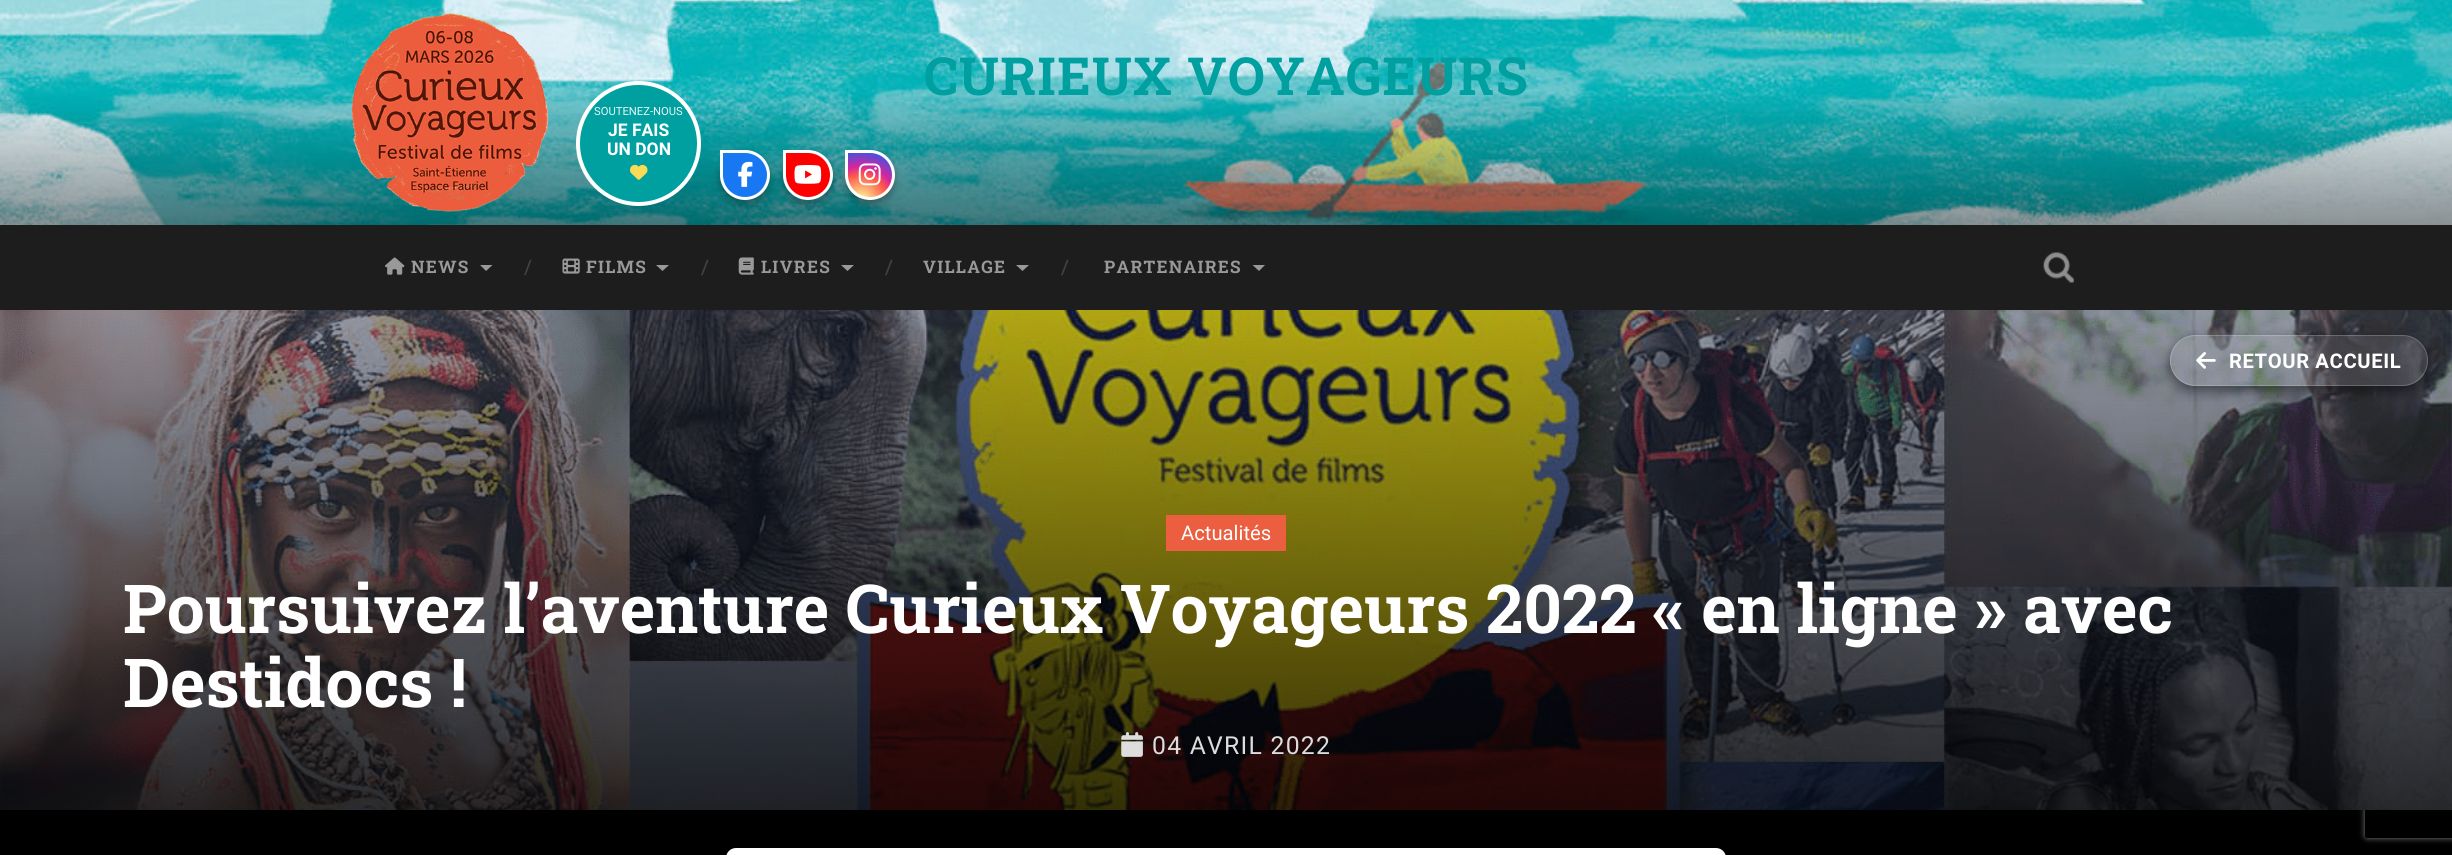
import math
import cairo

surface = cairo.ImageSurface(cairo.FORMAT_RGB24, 2452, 855)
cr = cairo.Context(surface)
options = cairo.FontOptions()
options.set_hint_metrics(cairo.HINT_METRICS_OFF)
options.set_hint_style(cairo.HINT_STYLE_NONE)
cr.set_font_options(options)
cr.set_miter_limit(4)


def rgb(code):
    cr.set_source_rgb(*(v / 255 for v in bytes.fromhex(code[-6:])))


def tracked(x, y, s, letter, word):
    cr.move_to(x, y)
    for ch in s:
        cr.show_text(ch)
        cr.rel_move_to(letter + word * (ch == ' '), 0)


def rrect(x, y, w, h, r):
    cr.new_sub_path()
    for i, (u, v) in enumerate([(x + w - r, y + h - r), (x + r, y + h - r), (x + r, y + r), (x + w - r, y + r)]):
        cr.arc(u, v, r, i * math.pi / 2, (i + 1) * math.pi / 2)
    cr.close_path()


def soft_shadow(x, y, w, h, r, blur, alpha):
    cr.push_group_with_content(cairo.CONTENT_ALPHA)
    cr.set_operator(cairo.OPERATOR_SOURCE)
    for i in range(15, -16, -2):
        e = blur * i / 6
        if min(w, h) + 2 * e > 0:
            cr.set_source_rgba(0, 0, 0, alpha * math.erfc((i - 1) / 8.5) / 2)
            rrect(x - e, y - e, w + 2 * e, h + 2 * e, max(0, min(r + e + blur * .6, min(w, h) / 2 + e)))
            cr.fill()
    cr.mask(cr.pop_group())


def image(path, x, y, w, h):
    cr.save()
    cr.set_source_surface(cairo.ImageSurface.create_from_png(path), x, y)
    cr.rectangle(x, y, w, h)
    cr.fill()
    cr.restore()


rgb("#000000")
cr.paint()
image("img/1.png", 0, 0, 2452, 225)
image("img/2.png", 351, 13, 198, 199)
rgb("#00a0a0")
cr.arc(638.5, 143.5, 60.5, 0, 2 * math.pi)
cr.fill_preserve()
rgb("#ffffff")
cr.set_line_width(4)
cr.stroke()
image("img/3.png", 630, 164, 18, 16)
rgb("#000000")
soft_shadow(720, 154, 50, 50, 25, 4, 0.3)
rgb("#1877f2")
cr.new_path()
cr.move_to(721.5, 151.5)
cr.line_to(745, 151.5)
cr.curve_to(758, 151.5, 768.5, 162, 768.5, 175)
cr.curve_to(768.5, 188, 758, 198.5, 745, 198.5)
cr.curve_to(732, 198.5, 721.5, 188, 721.5, 175)
cr.close_path()
cr.fill_preserve()
rgb("#ffffff")
cr.set_line_width(3)
cr.stroke()
image("img/4.png", 738, 161, 15, 26)
rgb("#000000")
soft_shadow(783, 154, 50, 50, 25, 4, 0.3)
rgb("#ff0000")
cr.new_path()
cr.move_to(784.5, 151.5)
cr.line_to(808, 151.5)
cr.curve_to(821, 151.5, 831.5, 162, 831.5, 175)
cr.curve_to(831.5, 188, 821, 198.5, 808, 198.5)
cr.curve_to(795, 198.5, 784.5, 188, 784.5, 175)
cr.close_path()
cr.fill_preserve()
rgb("#ffffff")
cr.stroke()
image("img/5.png", 794, 165, 28, 19)
rgb("#000000")
soft_shadow(845, 154, 50, 50, 25, 4, 0.3)
cr.save()
cr.new_path()
cr.move_to(845, 150)
cr.line_to(870, 150)
cr.curve_to(884, 150, 895, 161, 895, 175)
cr.curve_to(895, 189, 884, 200, 870, 200)
cr.curve_to(856, 200, 845, 189, 845, 175)
cr.close_path()
cr.clip()
gradient = cairo.RadialGradient(861, 201, 0, 861, 201, 58)
gradient.add_color_stop_rgba(0, 0.992, 0.957, 0.592, 1)
gradient.add_color_stop_rgba(0.05, 0.992, 0.957, 0.592, 1)
gradient.add_color_stop_rgba(0.45, 0.992, 0.349, 0.286, 1)
gradient.add_color_stop_rgba(0.6, 0.839, 0.141, 0.624, 1)
gradient.add_color_stop_rgba(0.9, 0.157, 0.353, 0.922, 1)
cr.set_source(gradient)
cr.rectangle(848, 153, 45, 45)
cr.fill()
cr.restore()
cr.new_path()
cr.move_to(846.5, 151.5)
cr.line_to(870, 151.5)
cr.curve_to(883, 151.5, 893.5, 162, 893.5, 175)
cr.curve_to(893.5, 188, 883, 198.5, 870, 198.5)
cr.curve_to(857, 198.5, 846.5, 188, 846.5, 175)
cr.close_path()
rgb("#ffffff")
cr.stroke()
image("img/6.png", 858, 163, 23, 23)
rgb("#1d1d1d")
cr.rectangle(0, 225, 2452, 85)
cr.fill()
image("img/7.png", 385, 257, 20, 18)
rgb("#999999")
cr.new_path()
cr.move_to(480, 265)
cr.line_to(492.5, 265)
cr.line_to(486, 271)
cr.close_path()
cr.fill()
image("img/8.png", 562, 258, 18, 16)
cr.new_path()
cr.move_to(656, 265)
cr.line_to(669, 265)
cr.line_to(662.5, 271)
cr.close_path()
cr.fill()
image("img/9.png", 738, 257, 16, 18)
cr.new_path()
cr.move_to(841, 265)
cr.line_to(854, 265)
cr.line_to(847.5, 271)
cr.close_path()
cr.fill()
cr.new_path()
cr.move_to(1016, 265)
cr.line_to(1029, 265)
cr.line_to(1022.5, 271)
cr.close_path()
cr.fill()
cr.new_path()
cr.move_to(1252.5, 265)
cr.line_to(1265, 265)
cr.line_to(1259, 271)
cr.close_path()
cr.fill()
image("img/10.png", 2043, 252, 31, 31)
cr.save()
cr.set_fill_rule(cairo.FILL_RULE_EVEN_ODD)
cr.new_path()
cr.move_to(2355, 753)
cr.line_to(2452, 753)
cr.line_to(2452, 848)
cr.line_to(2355, 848)
cr.close_path()
cr.move_to(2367.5, 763)
cr.line_to(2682.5, 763)
cr.curve_to(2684, 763, 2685, 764, 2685, 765.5)
cr.line_to(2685, 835.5)
cr.curve_to(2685, 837, 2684, 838, 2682.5, 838)
cr.line_to(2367.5, 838)
cr.curve_to(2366, 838, 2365, 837, 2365, 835.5)
cr.line_to(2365, 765.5)
cr.curve_to(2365, 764, 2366, 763, 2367.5, 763)
cr.close_path()
cr.clip()
rgb("#808080")
soft_shadow(2365, 763, 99, 75, 2.5, 3, 1)
cr.restore()
image("img/11.png", 0, 310, 2452, 500)
cr.save()
cr.set_fill_rule(cairo.FILL_RULE_EVEN_ODD)
cr.new_path()
cr.move_to(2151, 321)
cr.line_to(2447, 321)
cr.line_to(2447, 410)
cr.line_to(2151, 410)
cr.close_path()
cr.move_to(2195.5, 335)
cr.line_to(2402.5, 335)
cr.curve_to(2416.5, 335, 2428, 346.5, 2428, 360.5)
cr.curve_to(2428, 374.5, 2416.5, 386, 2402.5, 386)
cr.line_to(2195.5, 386)
cr.curve_to(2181.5, 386, 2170, 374.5, 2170, 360.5)
cr.curve_to(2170, 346.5, 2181.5, 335, 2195.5, 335)
cr.close_path()
cr.clip()
rgb("#000000")
soft_shadow(2170, 340, 258, 51, 25.5, 6, 0.5)
cr.restore()
cr.set_source_rgba(1, 1, 1, 0.1)
rrect(2170, 335, 258, 51, 25.5)
cr.fill()
rrect(2170.5, 335.5, 257, 50, 25)
cr.set_source_rgba(1, 1, 1, 0.2)
cr.set_line_width(1)
cr.stroke()
image("img/12.png", 2196, 352, 20, 17)
rgb("#eb5e3f")
cr.rectangle(1166, 515, 120, 36)
cr.fill()
image("img/13.png", 1121, 732, 22, 25)
rgb("#ffffff")
rrect(726, 848, 1000, 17, 10)
cr.fill()
cr.select_font_face("Roboto Slab", cairo.FONT_SLANT_NORMAL, cairo.FONT_WEIGHT_BOLD)
cr.set_font_size(52.5)
rgb("#00a0a0")
tracked(924, 95, "CURIEUX VOYAGEURS", 1.25, 0)
cr.select_font_face("Roboto")
cr.set_font_size(11.25)
rgb("#e6f6f6")
cr.move_to(594, 115)
cr.show_text("SOUTENEZ-NOUS")
cr.select_font_face("Roboto", cairo.FONT_SLANT_NORMAL, cairo.FONT_WEIGHT_BOLD)
cr.set_font_size(17.5)
rgb("#ffffff")
cr.move_to(608, 136)
cr.show_text("JE FAIS")
cr.move_to(607, 155)
cr.show_text("UN DON")
cr.select_font_face("Roboto Slab", cairo.FONT_SLANT_NORMAL, cairo.FONT_WEIGHT_BOLD)
cr.set_font_size(17.25)
rgb("#999999")
tracked(411, 273, "NEWS", 1.25, 0)
cr.select_font_face("Roboto Slab")
cr.set_font_size(20)
rgb("#444444")
cr.move_to(524, 274)
cr.show_text("/")
cr.select_font_face("Roboto Slab", cairo.FONT_SLANT_NORMAL, cairo.FONT_WEIGHT_BOLD)
cr.set_font_size(17.25)
rgb("#999999")
tracked(586, 273, "FILMS", 1.25, 0)
cr.select_font_face("Roboto Slab")
cr.set_font_size(20)
rgb("#444444")
cr.move_to(701, 274)
cr.show_text("/")
cr.select_font_face("Roboto Slab", cairo.FONT_SLANT_NORMAL, cairo.FONT_WEIGHT_BOLD)
cr.set_font_size(17.25)
rgb("#999999")
tracked(761, 273, "LIVRES", 1.25, 0)
cr.select_font_face("Roboto Slab")
cr.set_font_size(20)
rgb("#444444")
cr.move_to(885, 274)
cr.show_text("/")
cr.select_font_face("Roboto Slab", cairo.FONT_SLANT_NORMAL, cairo.FONT_WEIGHT_BOLD)
cr.set_font_size(17.25)
rgb("#999999")
tracked(923, 273, "VILLAGE", 1.25, 0)
cr.select_font_face("Roboto Slab")
cr.set_font_size(20)
rgb("#444444")
cr.move_to(1061, 274)
cr.show_text("/")
cr.select_font_face("Roboto Slab", cairo.FONT_SLANT_NORMAL, cairo.FONT_WEIGHT_BOLD)
cr.set_font_size(17.25)
rgb("#999999")
tracked(1104, 273, "PARTENAIRES", 1.25, 0)
cr.select_font_face("Roboto", cairo.FONT_SLANT_NORMAL, cairo.FONT_WEIGHT_BOLD)
cr.set_font_size(20.25)
rgb("#ffffff")
tracked(2229, 368, "RETOUR ACCUEIL", 0.6, 0)
cr.select_font_face("Roboto")
cr.move_to(1181, 540)
cr.show_text("Actualités")
cr.select_font_face("Roboto Slab", cairo.FONT_SLANT_NORMAL, cairo.FONT_WEIGHT_BOLD)
cr.set_font_size(67.5)
cr.move_to(123, 633)
cr.show_text("Poursuivez l’aventure Curieux Voyageurs 2022 « en ligne » avec")
cr.move_to(123, 707)
cr.show_text("Destidocs !")
cr.select_font_face("Roboto")
cr.set_font_size(24.75)
rgb("#dddddd")
tracked(1152, 754, "04 AVRIL 2022", 1.25, 0)
surface.write_to_png("page.png")
